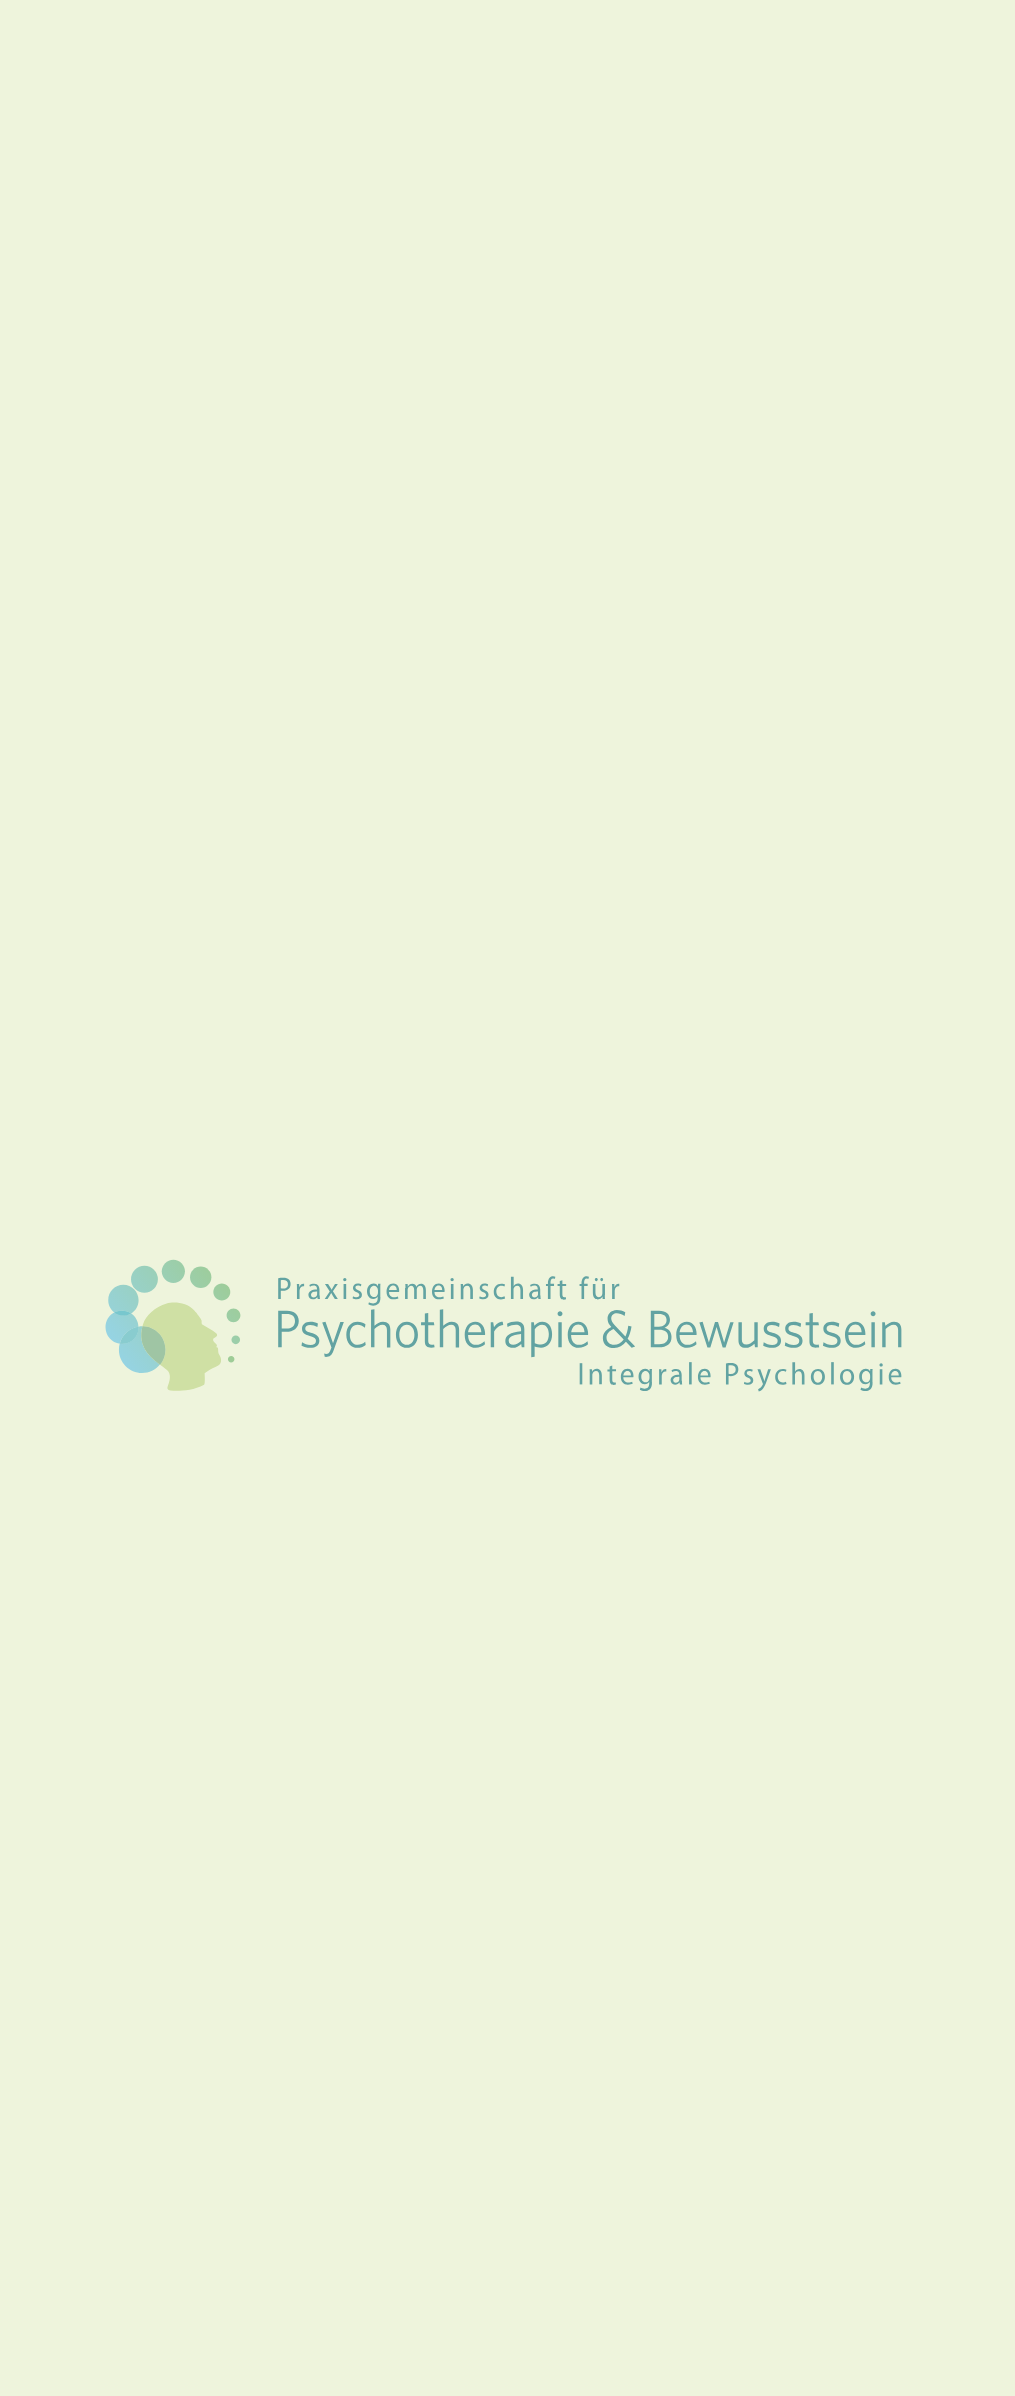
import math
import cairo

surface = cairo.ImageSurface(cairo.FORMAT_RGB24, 1015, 2396)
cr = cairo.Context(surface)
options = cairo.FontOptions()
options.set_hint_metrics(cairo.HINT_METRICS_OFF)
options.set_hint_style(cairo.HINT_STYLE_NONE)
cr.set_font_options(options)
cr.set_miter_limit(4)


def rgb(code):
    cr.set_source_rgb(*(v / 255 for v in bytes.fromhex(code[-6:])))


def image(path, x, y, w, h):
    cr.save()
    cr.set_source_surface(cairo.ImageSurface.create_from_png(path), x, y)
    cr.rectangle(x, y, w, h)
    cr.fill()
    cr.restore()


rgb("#eef4dc")
cr.paint()
image("img/1.png", 105, 1259, 797, 133)
surface.write_to_png("page.png")
